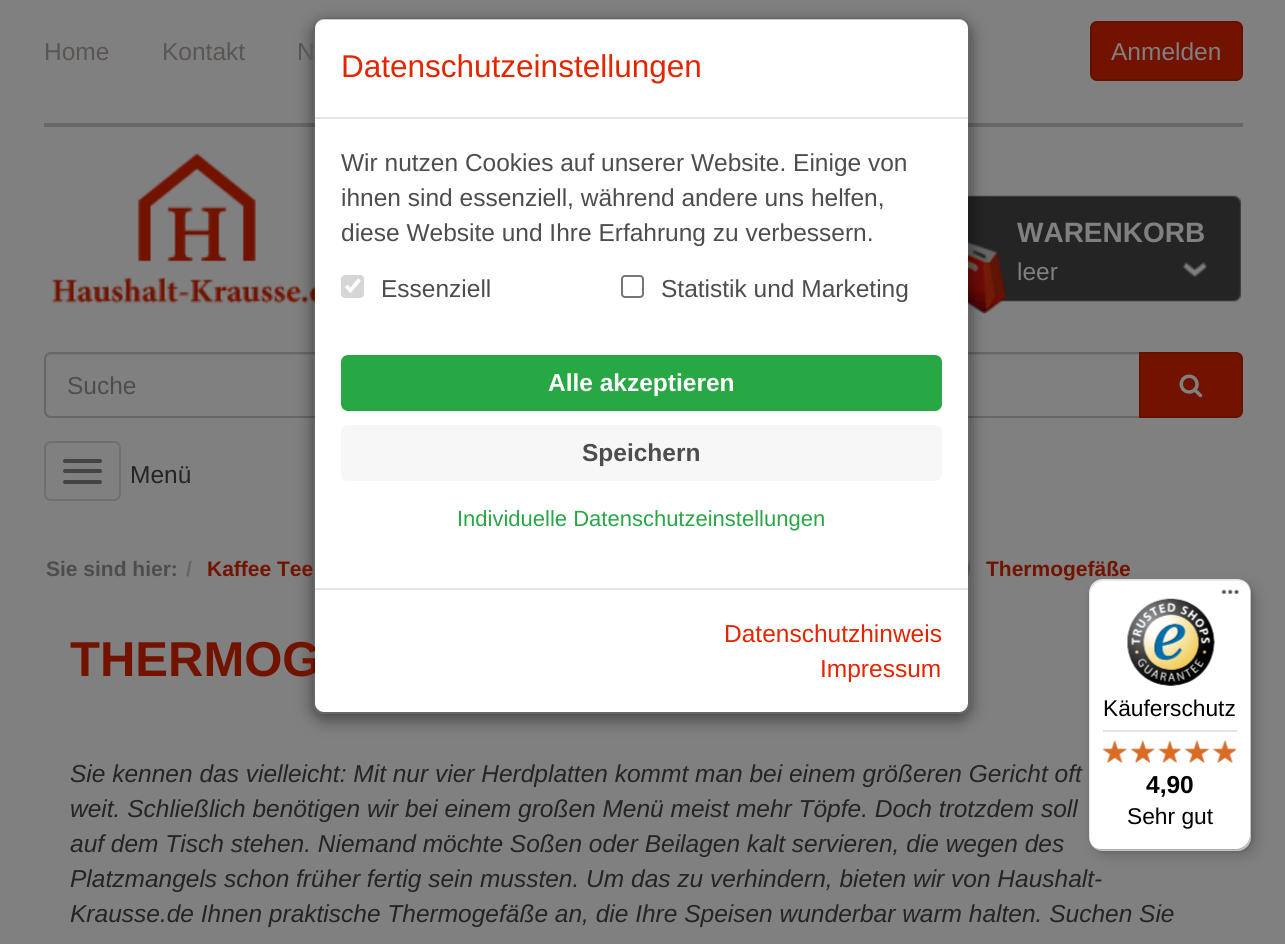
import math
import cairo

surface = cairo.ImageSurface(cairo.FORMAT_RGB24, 1285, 944)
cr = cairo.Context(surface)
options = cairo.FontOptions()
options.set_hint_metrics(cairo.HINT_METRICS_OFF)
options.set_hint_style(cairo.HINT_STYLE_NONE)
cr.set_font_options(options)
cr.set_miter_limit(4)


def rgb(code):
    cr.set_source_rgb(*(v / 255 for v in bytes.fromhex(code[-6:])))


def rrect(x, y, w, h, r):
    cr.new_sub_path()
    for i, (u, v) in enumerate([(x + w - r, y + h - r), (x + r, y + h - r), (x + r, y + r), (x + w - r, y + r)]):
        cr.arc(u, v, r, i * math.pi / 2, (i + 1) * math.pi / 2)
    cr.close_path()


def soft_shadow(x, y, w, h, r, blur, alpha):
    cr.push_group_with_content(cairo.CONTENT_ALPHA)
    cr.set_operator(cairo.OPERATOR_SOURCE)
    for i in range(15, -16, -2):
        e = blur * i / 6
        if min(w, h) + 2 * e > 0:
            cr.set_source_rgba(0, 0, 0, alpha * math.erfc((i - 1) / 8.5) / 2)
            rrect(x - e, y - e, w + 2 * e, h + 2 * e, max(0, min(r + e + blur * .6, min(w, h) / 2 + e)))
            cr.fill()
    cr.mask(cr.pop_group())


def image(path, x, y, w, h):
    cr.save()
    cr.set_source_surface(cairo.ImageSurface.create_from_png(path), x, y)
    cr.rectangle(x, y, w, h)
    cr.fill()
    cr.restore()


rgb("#808080")
cr.paint()
rgb("#696664")
cr.rectangle(44, 123, 1199, 4)
cr.fill()
rgb("#721300")
rrect(1091, 22, 151, 58, 6)
cr.fill_preserve()
rgb("#661100")
cr.stroke()
image("img/1.png", 52, 153, 263, 151)
image("img/2.png", 968, 195, 273, 119)
rgb("#767676")
cr.new_path()
cr.move_to(51, 355)
cr.line_to(1139, 355)
cr.line_to(1139, 354)
cr.line_to(51, 354)
cr.curve_to(48, 354, 46, 357, 46, 360)
cr.curve_to(46, 358, 48, 355, 51, 355)
cr.close_path()
cr.fill()
cr.new_path()
cr.move_to(51, 353)
cr.line_to(1140, 353)
cr.line_to(1140, 417)
cr.line_to(51, 417)
cr.curve_to(47.5, 417, 45, 414.5, 45, 411)
cr.line_to(45, 359)
cr.curve_to(45, 355.5, 47.5, 353, 51, 353)
cr.close_path()
rgb("#666666")
cr.stroke()
rgb("#721300")
cr.new_path()
cr.move_to(1140, 353)
cr.line_to(1236, 353)
cr.curve_to(1239.5, 353, 1242, 355.5, 1242, 359)
cr.line_to(1242, 411)
cr.curve_to(1242, 414.5, 1239.5, 417, 1236, 417)
cr.line_to(1140, 417)
cr.close_path()
cr.fill_preserve()
rgb("#661100")
cr.stroke()
image("img/3.png", 1179, 374, 24, 24)
rrect(45, 442, 75, 58, 6)
rgb("#6f6f6f")
cr.stroke()
rgb("#444444")
rrect(63, 459, 39, 4, 2)
cr.fill()
rrect(63, 469, 39, 4, 2)
cr.fill()
rrect(63, 480, 39, 4, 2)
cr.fill()
cr.save()
cr.set_fill_rule(cairo.FILL_RULE_EVEN_ODD)
cr.new_path()
cr.move_to(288, 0)
cr.line_to(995, 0)
cr.line_to(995, 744)
cr.line_to(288, 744)
cr.close_path()
cr.move_to(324, 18)
cr.line_to(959, 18)
cr.curve_to(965, 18, 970, 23, 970, 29)
cr.line_to(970, 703)
cr.curve_to(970, 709, 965, 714, 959, 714)
cr.line_to(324, 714)
cr.curve_to(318, 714, 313, 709, 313, 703)
cr.line_to(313, 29)
cr.curve_to(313, 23, 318, 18, 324, 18)
cr.close_path()
cr.clip()
rgb("#000000")
soft_shadow(313, 23, 657, 696, 11, 8, 0.5)
cr.restore()
rgb("#000000")
soft_shadow(1094, 585, 163, 271, 14, 7, 0.15)
soft_shadow(1090, 581, 163, 271, 14, 2, 0.15)
cr.select_font_face("Liberation Sans")
cr.set_font_size(24.5)
rgb("#5a5552")
for x, y, s in [
    (44, 60, "Home"),
    (162, 60, "Kontakt"),
    (297, 60, "N"),
]:
    cr.move_to(x, y)
    cr.show_text(s)
rgb("#808080")
cr.move_to(1111, 60)
cr.show_text("Anmelden")
cr.select_font_face("Liberation Sans", cairo.FONT_SLANT_NORMAL, cairo.FONT_WEIGHT_BOLD)
cr.set_font_size(28)
cr.move_to(1017, 242)
cr.show_text("WARENKORB")
cr.select_font_face("Liberation Sans")
cr.set_font_size(24.5)
cr.move_to(1017, 280)
cr.show_text("leer")
rgb("#4d4d4d")
cr.move_to(67, 394)
cr.show_text("Suche")
rgb("#242424")
cr.move_to(130, 483)
cr.show_text("Menü")
cr.select_font_face("Liberation Sans", cairo.FONT_SLANT_NORMAL, cairo.FONT_WEIGHT_BOLD)
cr.set_font_size(21)
rgb("#4d4d4d")
cr.move_to(46, 576)
cr.show_text("Sie sind hier:")
rgb("#666666")
cr.move_to(186, 576)
cr.show_text("/")
rgb("#721300")
cr.move_to(207, 576)
cr.show_text("Kaffee Tee")
rgb("#666666")
cr.move_to(966, 576)
cr.show_text("/")
rgb("#721300")
cr.move_to(986, 576)
cr.show_text("Thermogefäße")
cr.set_font_size(49)
cr.move_to(70, 676)
cr.show_text("THERMOG")
rgb("#ffffff")
rrect(315, 19, 653, 693, 9)
cr.fill()
rrect(314, 19, 655, 694, 10)
cr.set_source_rgba(0, 0, 0, 0.2)
cr.stroke()
cr.select_font_face("Liberation Sans")
cr.set_font_size(22)
rgb("#28a745")
cr.move_to(457, 526)
cr.show_text("Individuelle Datenschutzeinstellungen")
rgb("#f7f7f7")
rrect(341, 425, 601, 56, 7)
cr.fill()
cr.select_font_face("Liberation Sans", cairo.FONT_SLANT_NORMAL, cairo.FONT_WEIGHT_BOLD)
cr.set_font_size(24.5)
rgb("#4d4d4d")
cr.move_to(582, 461)
cr.show_text("Speichern")
rgb("#28a745")
rrect(341, 355, 601, 56, 7)
cr.fill()
rgb("#ffffff")
cr.move_to(548, 391)
cr.show_text("Alle akzeptieren")
cr.select_font_face("Liberation Sans")
rgb("#4d4d4d")
for x, y, s in [
    (341, 241, "diese Website und Ihre Erfahrung zu verbessern."),
    (341, 206, "ihnen sind essenziell, während andere uns helfen,"),
    (341, 171, "Wir nutzen Cookies auf unserer Website. Einige von"),
    (661, 297, "Statistik und Marketing"),
]:
    cr.move_to(x, y)
    cr.show_text(s)
rrect(622, 276, 21, 21, 3)
rgb("#767676")
cr.stroke()
rgb("#4d4d4d")
cr.move_to(381, 297)
cr.show_text("Essenziell")
rgb("#d6d6d6")
rrect(341, 275, 23, 23, 4)
cr.fill()
cr.new_path()
cr.move_to(346, 286)
cr.line_to(350.5, 290.5)
cr.line_to(359.5, 279.5)
rgb("#ffffff")
cr.set_line_width(3.6)
cr.stroke()
rgb("#e32500")
cr.move_to(820, 677)
cr.show_text("Impressum")
cr.move_to(724, 642)
cr.show_text("Datenschutzhinweis")
cr.set_font_size(31.5)
cr.move_to(341, 77)
cr.show_text("Datenschutzeinstellungen")
rgb("#e5e5e5")
cr.rectangle(315, 588, 653, 2)
cr.fill()
cr.rectangle(315, 117, 653, 2)
cr.fill()
cr.select_font_face("Liberation Sans", cairo.FONT_SLANT_ITALIC)
cr.set_font_size(24.5)
rgb("#242424")
for x, y, s in [
    (70, 782, "Sie kennen das vielleicht: Mit nur vier Herdplatten kommt man bei einem größeren Gericht oft"),
    (70, 817, "weit. Schließlich benötigen wir bei einem großen Menü meist mehr Töpfe. Doch trotzdem soll"),
    (70, 852, "auf dem Tisch stehen. Niemand möchte Soßen oder Beilagen kalt servieren, die wegen des"),
    (70, 887, "Platzmangels schon früher fertig sein mussten. Um das zu verhindern, bieten wir von Haushalt-"),
    (70, 922, "Krausse.de Ihnen praktische Thermogefäße an, die Ihre Speisen wunderbar warm halten. Suchen Sie"),
]:
    cr.move_to(x, y)
    cr.show_text(s)
rgb("#ffffff")
rrect(1089, 579, 162, 272, 14)
cr.fill()
cr.set_source_rgba(0, 0, 0, 0.1)
cr.new_path()
cr.move_to(1104, 581)
cr.line_to(1239, 581)
cr.curve_to(1242, 581, 1245, 582, 1247, 584)
cr.curve_to(1245, 581, 1241, 579, 1237, 579)
cr.line_to(1103, 579)
cr.curve_to(1095, 579, 1089, 585, 1089, 593)
cr.line_to(1089, 837)
cr.curve_to(1089, 842, 1091, 846, 1095, 848)
cr.curve_to(1092, 846, 1090, 842, 1090, 838)
cr.line_to(1090, 595)
cr.curve_to(1090, 587, 1097, 581, 1104, 581)
cr.close_path()
cr.fill()
cr.set_source_rgba(0, 0, 0, 0.2)
cr.new_path()
cr.move_to(1092, 845)
cr.curve_to(1094, 849, 1098, 851, 1103, 851)
cr.line_to(1237, 851)
cr.curve_to(1245, 851, 1251, 845, 1251, 837)
cr.line_to(1251, 593)
cr.curve_to(1251, 588, 1249, 584, 1245, 582)
cr.curve_to(1248, 584, 1250, 588, 1250, 592)
cr.line_to(1250, 835)
cr.curve_to(1250, 842, 1243, 849, 1236, 849)
cr.line_to(1101, 849)
cr.curve_to(1097, 849, 1094, 848, 1092, 845)
cr.close_path()
cr.fill()
cr.set_source_rgba(0.196, 0.196, 0.196, 0.2)
cr.new_path()
cr.move_to(1092, 845)
cr.curve_to(1094, 849, 1098, 851, 1103, 851)
cr.line_to(1237, 851)
cr.curve_to(1245, 851, 1251, 845, 1251, 837)
cr.line_to(1251, 593)
cr.curve_to(1251, 589, 1250, 586, 1247, 584)
cr.curve_to(1249, 586, 1250, 589, 1250, 592)
cr.line_to(1250, 835)
cr.curve_to(1250, 843, 1244, 849, 1236, 849)
cr.line_to(1101, 849)
cr.curve_to(1098, 849, 1094, 848, 1092, 845)
cr.close_path()
cr.fill()
cr.set_source_rgba(1, 1, 1, 0.3)
cr.new_path()
cr.move_to(1092, 845)
cr.curve_to(1094, 849, 1098, 851, 1103, 851)
cr.line_to(1237, 851)
cr.curve_to(1245, 851, 1251, 845, 1251, 837)
cr.line_to(1251, 593)
cr.curve_to(1251, 588, 1249, 584, 1246, 582)
cr.curve_to(1248, 585, 1250, 588, 1250, 592)
cr.line_to(1250, 836)
cr.curve_to(1250, 843, 1244, 850, 1236, 850)
cr.line_to(1102, 850)
cr.curve_to(1098, 850, 1094, 848, 1092, 845)
cr.close_path()
cr.fill()
image("img/4.png", 1221, 589, 18, 5)
image("img/5.png", 1127, 598, 88, 88)
cr.select_font_face("Liberation Sans")
cr.set_font_size(22.75)
rgb("#000000")
cr.move_to(1103, 716)
cr.show_text("Käuferschutz")
rgb("#e5e5e5")
cr.rectangle(1103, 730, 134, 2)
cr.fill()
image("img/6.png", 1102, 740, 25, 23)
image("img/7.png", 1131, 740, 24, 23)
image("img/8.png", 1158, 741, 23, 22)
image("img/9.png", 1185, 740, 24, 23)
image("img/10.png", 1213, 740, 24, 23)
image("img/11.png", 1102, 740, 25, 23)
image("img/12.png", 1130, 740, 25, 23)
image("img/13.png", 1158, 740, 24, 23)
image("img/14.png", 1184, 740, 25, 23)
image("img/15.png", 1212, 740, 24, 23)
cr.select_font_face("Liberation Sans", cairo.FONT_SLANT_NORMAL, cairo.FONT_WEIGHT_BOLD)
cr.set_font_size(24.5)
rgb("#000000")
cr.move_to(1146, 793)
cr.show_text("4,90")
cr.select_font_face("Liberation Sans")
cr.set_font_size(22.75)
cr.move_to(1127, 824)
cr.show_text("Sehr gut")
surface.write_to_png("page.png")
